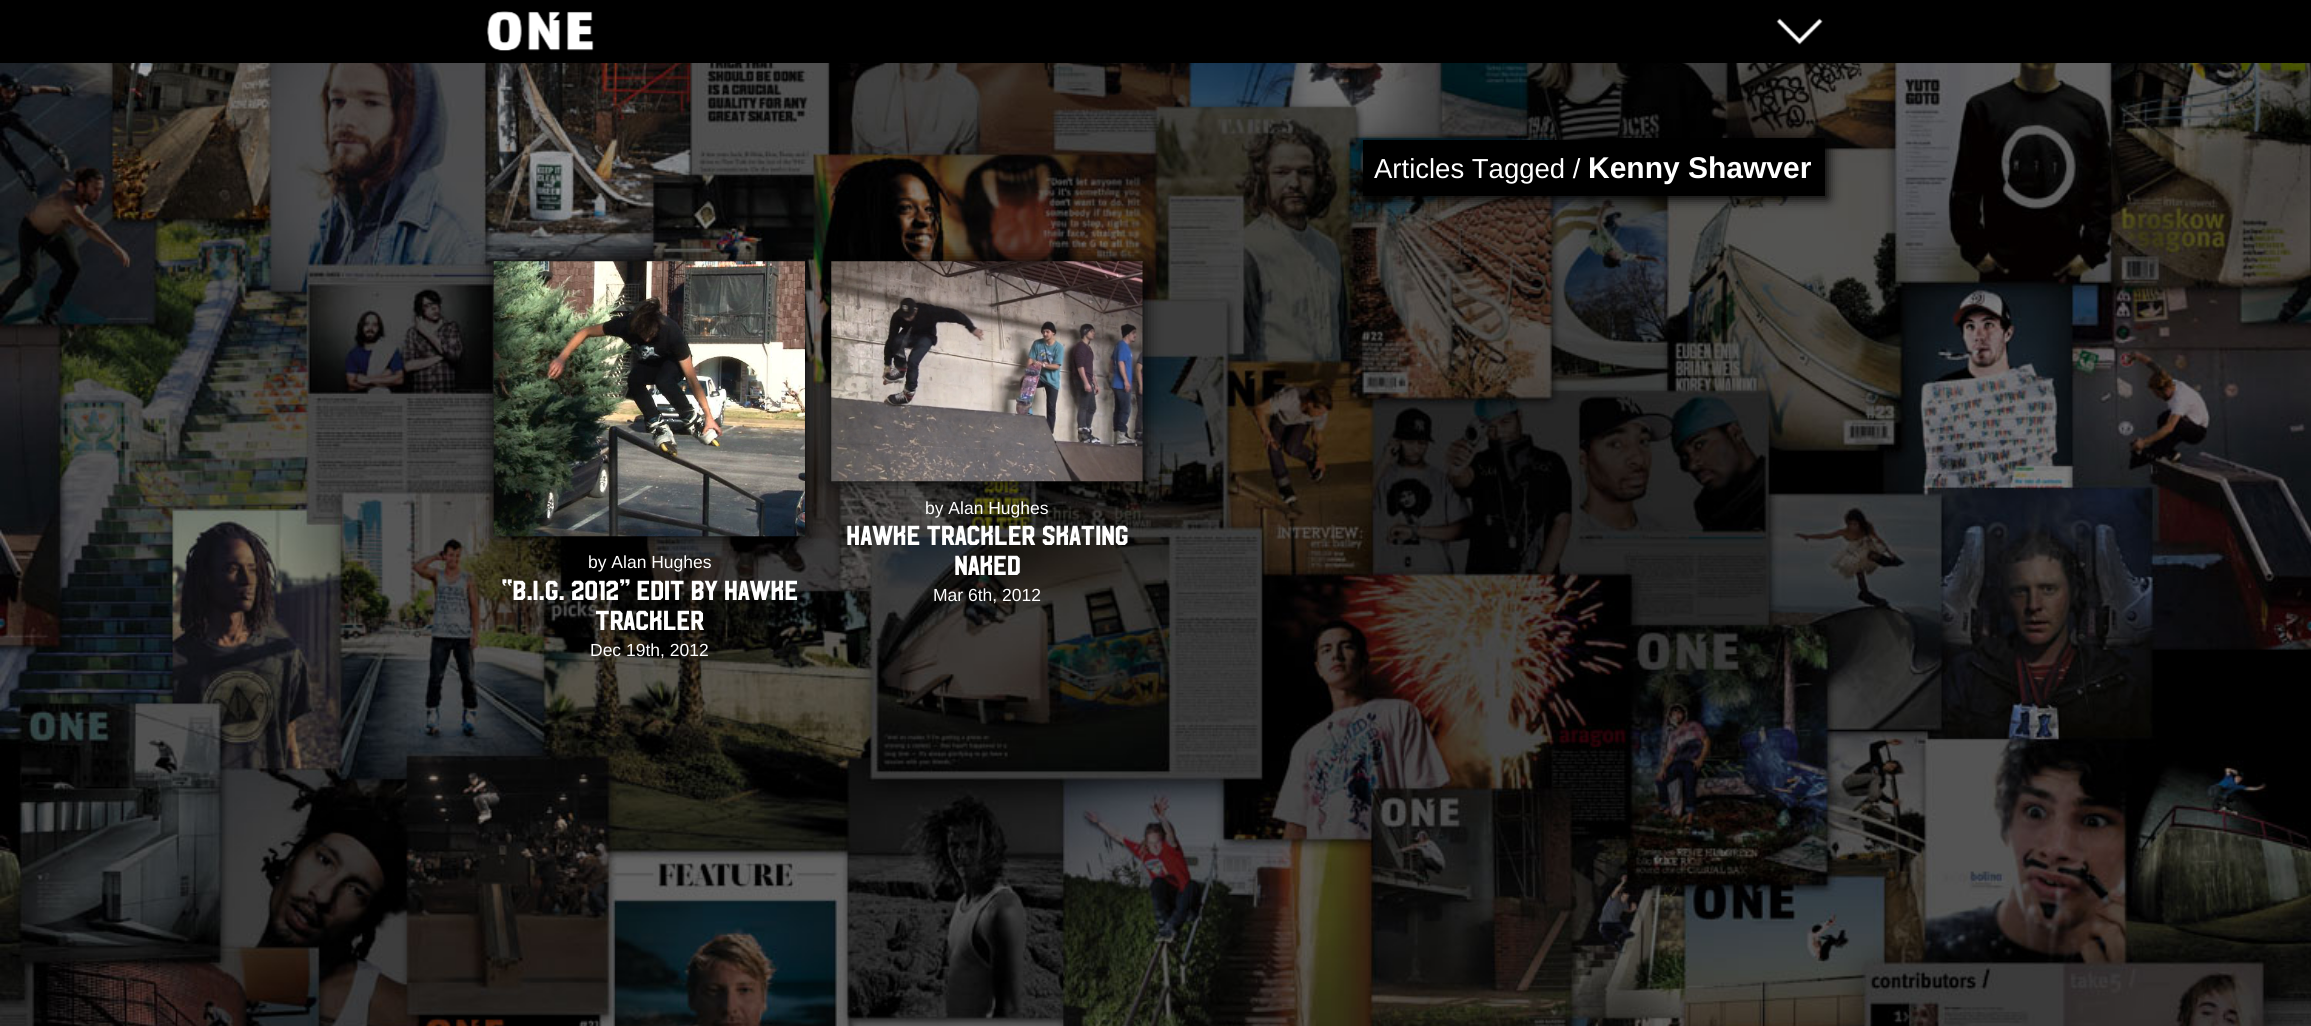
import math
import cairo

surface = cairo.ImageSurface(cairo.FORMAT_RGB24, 2311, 1026)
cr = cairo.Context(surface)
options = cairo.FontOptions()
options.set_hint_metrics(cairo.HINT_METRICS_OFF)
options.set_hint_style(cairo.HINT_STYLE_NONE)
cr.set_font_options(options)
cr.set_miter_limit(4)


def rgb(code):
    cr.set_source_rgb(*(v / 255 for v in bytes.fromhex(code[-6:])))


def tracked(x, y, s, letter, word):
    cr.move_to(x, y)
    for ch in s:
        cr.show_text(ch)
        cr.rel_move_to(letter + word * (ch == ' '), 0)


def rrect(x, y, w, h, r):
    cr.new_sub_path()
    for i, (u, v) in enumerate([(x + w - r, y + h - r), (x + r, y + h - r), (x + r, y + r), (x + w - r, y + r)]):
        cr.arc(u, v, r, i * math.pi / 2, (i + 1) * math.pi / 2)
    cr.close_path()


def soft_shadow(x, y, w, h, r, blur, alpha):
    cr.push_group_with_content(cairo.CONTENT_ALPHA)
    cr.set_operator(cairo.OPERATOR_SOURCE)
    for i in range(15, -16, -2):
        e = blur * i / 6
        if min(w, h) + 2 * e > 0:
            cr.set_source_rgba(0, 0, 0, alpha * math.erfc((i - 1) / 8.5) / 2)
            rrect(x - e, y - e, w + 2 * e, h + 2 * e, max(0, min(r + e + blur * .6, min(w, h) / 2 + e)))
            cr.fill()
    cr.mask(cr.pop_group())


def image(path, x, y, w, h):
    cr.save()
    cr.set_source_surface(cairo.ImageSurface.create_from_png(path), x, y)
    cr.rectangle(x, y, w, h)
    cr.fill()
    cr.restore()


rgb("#ffffff")
cr.paint()
rgb("#000000")
cr.rectangle(0, 0, 2311, 63)
cr.fill()
image("img/1.png", 487, 11, 107, 40)
image("img/2.png", 1776, 18, 47, 27)
image("img/3.png", 0, 63, 2311, 963)
rgb("#000000")
soft_shadow(1365, 143, 226, 56, 0, 6, 1)
rgb("#000000")
cr.rectangle(1363, 140, 226, 56)
cr.fill()
rgb("#000000")
soft_shadow(1591, 140, 237, 59, 0, 6, 1)
rgb("#000000")
cr.rectangle(1589, 138, 236, 58)
cr.fill()
rgb("#000000")
soft_shadow(494, 261, 311, 275, 0, 9.5, 1)
image("img/4.png", 493, 261, 312, 276)
soft_shadow(831, 261, 312, 220, 0, 9.5, 1)
image("img/5.png", 831, 261, 312, 221)
cr.select_font_face("Liberation Sans")
cr.set_font_size(27.5)
rgb("#ffffff")
cr.move_to(1374, 178)
cr.show_text("Articles Tagged /")
cr.select_font_face("Liberation Sans", cairo.FONT_SLANT_NORMAL, cairo.FONT_WEIGHT_BOLD)
cr.set_font_size(30)
cr.move_to(1588, 178)
cr.show_text("Kenny Shawver")
cr.select_font_face("Liberation Sans")
cr.set_font_size(17.5)
cr.move_to(588, 568)
cr.show_text("by Alan Hughes")
cr.select_font_face("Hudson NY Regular")
cr.set_font_size(27.5)
tracked(501, 600, "“B.I.G. 2012” Edit by Hawke", -0.55, 0)
tracked(595, 630, "Trackler", -0.55, 0)
cr.select_font_face("Liberation Sans")
cr.set_font_size(17.5)
cr.move_to(590, 656)
cr.show_text("Dec 19th, 2012")
cr.move_to(925, 514)
cr.show_text("by Alan Hughes")
cr.select_font_face("Hudson NY Regular")
cr.set_font_size(27.5)
tracked(846, 545, "Hawke Trackler Skating", -0.55, 0)
tracked(954, 575, "Naked", -0.55, 0)
cr.select_font_face("Liberation Sans")
cr.set_font_size(17.5)
cr.move_to(933, 601)
cr.show_text("Mar 6th, 2012")
surface.write_to_png("page.png")
